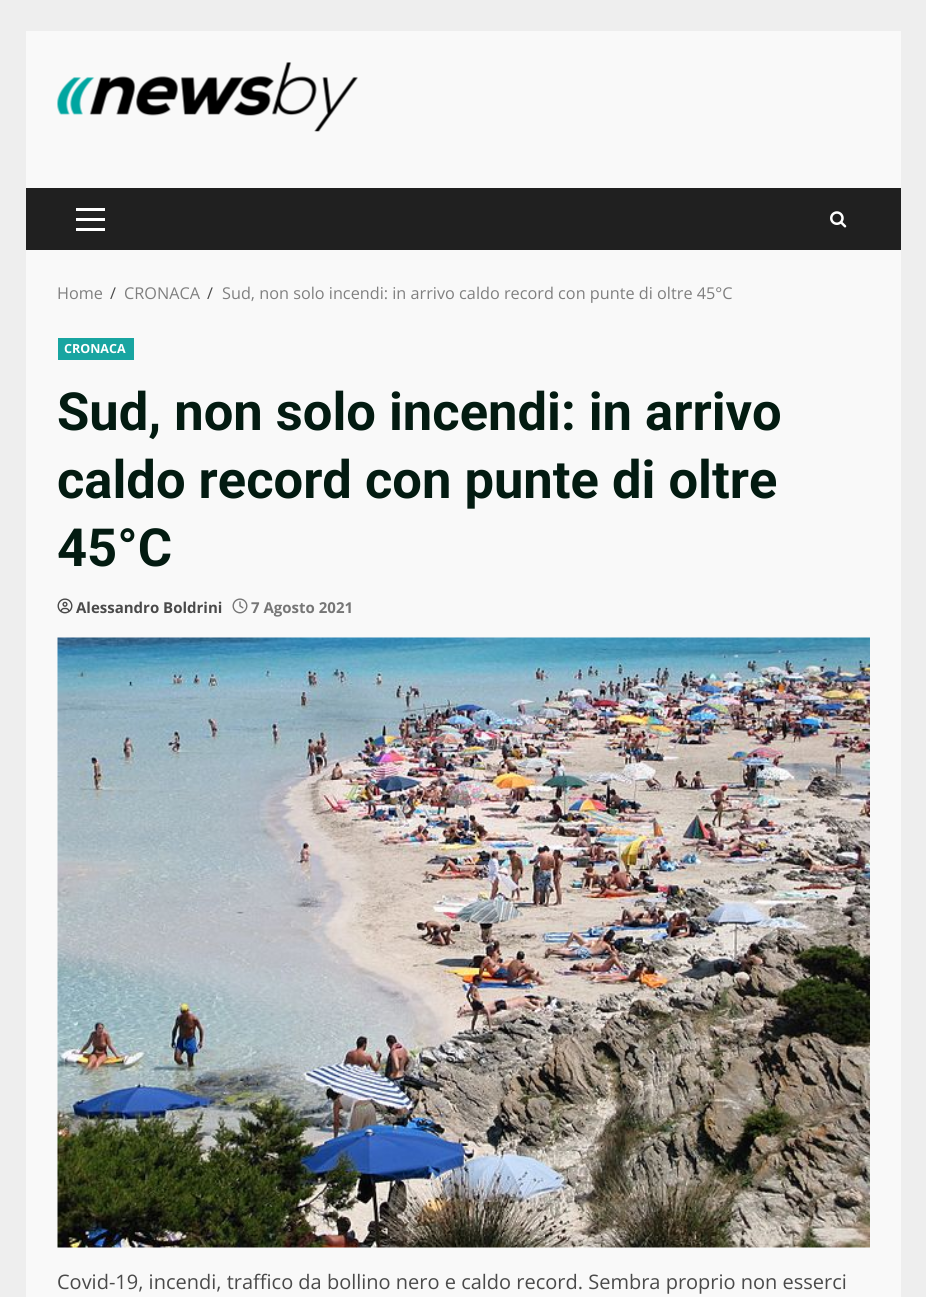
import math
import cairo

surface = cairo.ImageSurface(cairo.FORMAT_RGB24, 926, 1297)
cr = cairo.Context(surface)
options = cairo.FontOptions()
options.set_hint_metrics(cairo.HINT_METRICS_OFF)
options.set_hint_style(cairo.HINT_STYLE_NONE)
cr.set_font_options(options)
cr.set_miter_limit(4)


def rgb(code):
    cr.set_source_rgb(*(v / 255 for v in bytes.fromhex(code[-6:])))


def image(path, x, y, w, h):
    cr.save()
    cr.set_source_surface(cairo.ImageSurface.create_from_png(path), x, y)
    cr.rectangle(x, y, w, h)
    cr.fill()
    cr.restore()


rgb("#eeeeee")
cr.paint()
rgb("#f9f9f9")
cr.rectangle(26, 31, 875, 1266)
cr.fill()
image("img/1.png", 57, 62, 301, 70)
for x, y, w, h, color in [
    (26, 188, 875, 62, "#202020"),
    (76, 218, 29, 3, "#ffffff"),
    (76, 208, 29, 3, "#ffffff"),
    (76, 228, 29, 3, "#ffffff"),
]:
    rgb(color)
    cr.rectangle(x, y, w, h)
    cr.fill()
image("img/2.png", 830, 211, 17, 17)
rgb("#18a5a1")
cr.rectangle(58, 338, 76, 22)
cr.fill()
image("img/3.png", 57, 598, 16, 16)
image("img/4.png", 232, 598, 16, 16)
image("img/5.png", 57, 637, 813, 611)
cr.select_font_face("Open Sans")
cr.set_font_size(16.25)
rgb("#7f7f7f")
cr.move_to(57, 299)
cr.show_text("Home")
rgb("#4a4a4a")
cr.move_to(110, 299)
cr.show_text("/")
rgb("#7f7f7f")
cr.move_to(124, 299)
cr.show_text("CRONACA")
rgb("#4a4a4a")
cr.move_to(207, 299)
cr.show_text("/")
rgb("#7f7f7f")
cr.move_to(222, 299)
cr.show_text("Sud, non solo incendi: in arrivo caldo record con punte di oltre 45°C")
cr.select_font_face("Open Sans", cairo.FONT_SLANT_NORMAL, cairo.FONT_WEIGHT_BOLD)
cr.set_font_size(12.5)
rgb("#ffffff")
cr.move_to(64, 353)
cr.show_text("CRONACA")
cr.select_font_face("Roboto", cairo.FONT_SLANT_NORMAL, cairo.FONT_WEIGHT_BOLD)
cr.set_font_size(52.5)
rgb("#031b11")
for x, y, s in [
    (57, 430, "Sud, non solo incendi: in arrivo"),
    (57, 498, "caldo record con punte di oltre"),
    (57, 566, "45°C"),
]:
    cr.move_to(x, y)
    cr.show_text(s)
cr.select_font_face("Open Sans", cairo.FONT_SLANT_NORMAL, cairo.FONT_WEIGHT_BOLD)
cr.set_font_size(15)
rgb("#4a4a4a")
cr.move_to(76, 613)
cr.show_text("Alessandro Boldrini")
rgb("#767676")
cr.move_to(251, 613)
cr.show_text("7 Agosto 2021")
cr.select_font_face("Open Sans")
cr.set_font_size(20)
rgb("#4a4a4a")
cr.move_to(57, 1289)
cr.show_text("Covid-19, incendi, traffico da bollino nero e caldo record. Sembra proprio non esserci")
surface.write_to_png("page.png")
